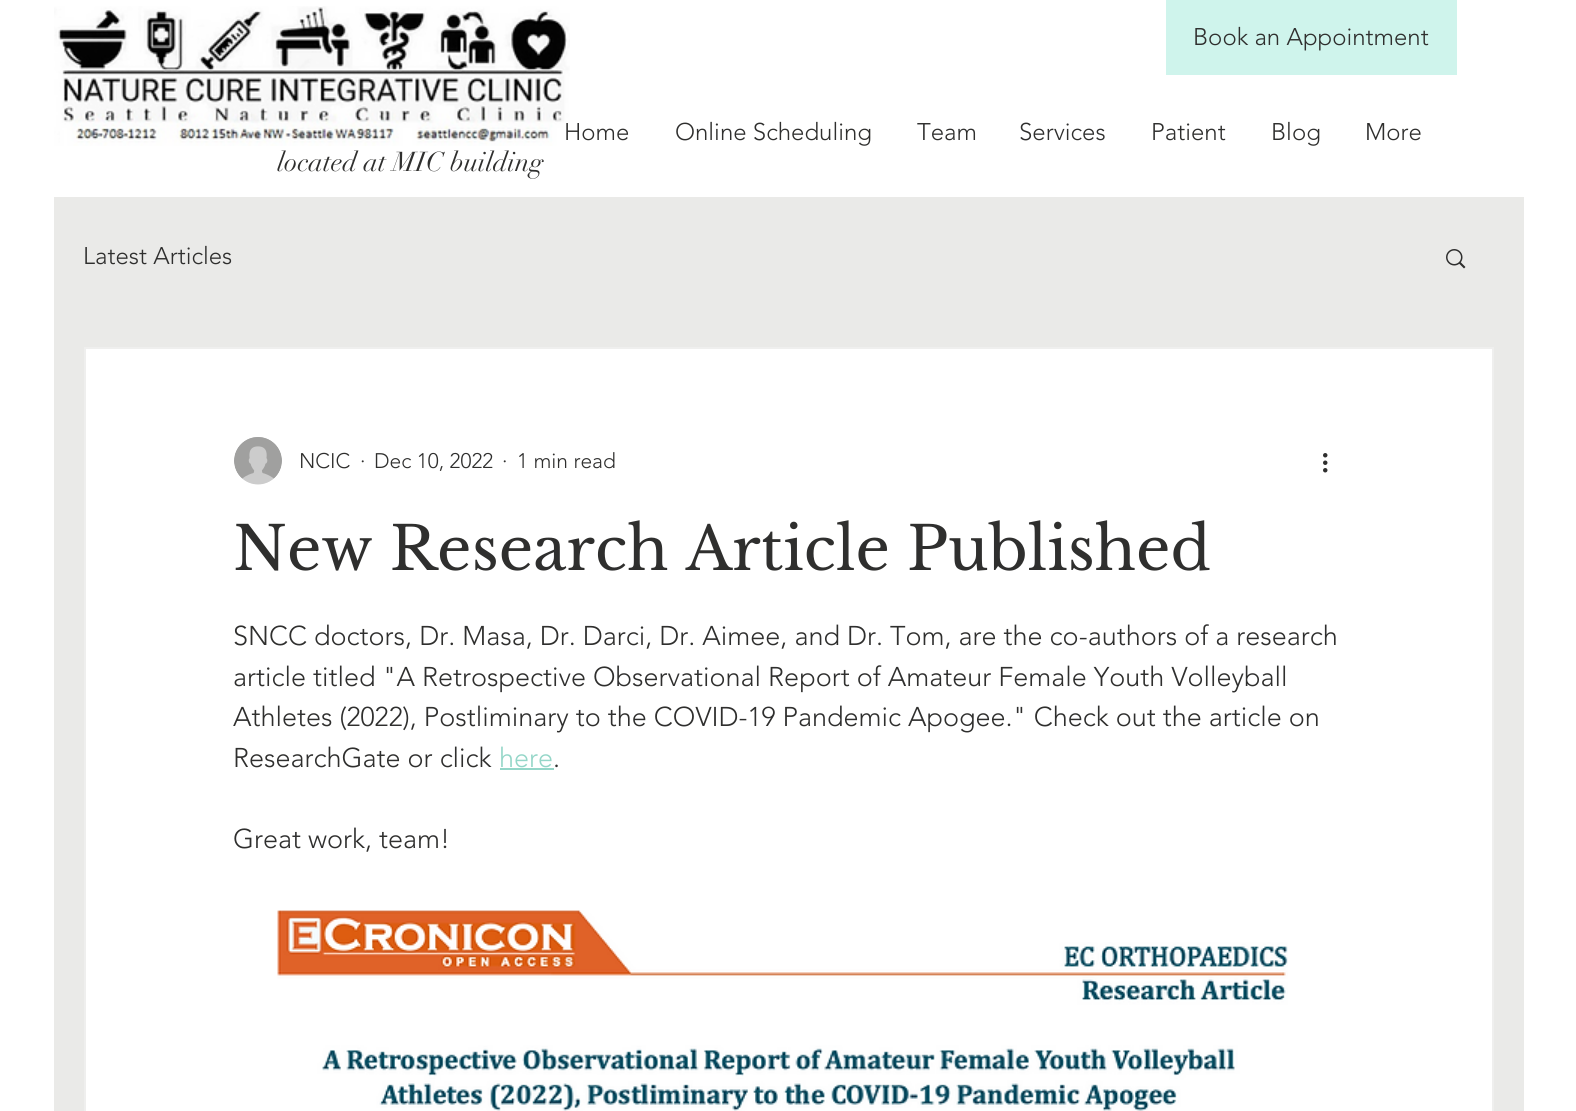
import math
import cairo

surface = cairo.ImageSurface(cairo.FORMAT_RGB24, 1576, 1111)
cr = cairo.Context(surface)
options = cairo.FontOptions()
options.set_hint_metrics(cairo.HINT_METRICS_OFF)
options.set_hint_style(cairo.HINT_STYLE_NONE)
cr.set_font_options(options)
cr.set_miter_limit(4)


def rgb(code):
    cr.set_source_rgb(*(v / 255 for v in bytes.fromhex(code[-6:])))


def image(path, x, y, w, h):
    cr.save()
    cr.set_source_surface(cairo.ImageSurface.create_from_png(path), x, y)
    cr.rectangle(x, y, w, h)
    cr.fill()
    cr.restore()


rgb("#ffffff")
cr.paint()
rgb("#cff4ec")
cr.rectangle(1166, 0, 291, 75)
cr.fill()
image("img/1.png", 54, 6, 516, 140)
rgb("#eaeae8")
cr.rectangle(54, 197, 1470, 914)
cr.fill()
image("img/2.png", 1446, 249, 20, 20)
rgb("#ffffff")
cr.rectangle(85, 348, 1408, 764)
cr.fill_preserve()
rgb("#efefee")
cr.stroke()
image("img/3.png", 234, 437, 48, 48)
image("img/4.png", 1323, 453, 5, 20)
rgb("#94d6c8")
cr.rectangle(500, 768, 54, 2)
cr.fill()
image("img/5.png", 277, 910, 1011, 201)
cr.select_font_face("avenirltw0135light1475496 Light")
cr.set_font_size(24)
rgb("#2f2f2e")
for x, y, s in [
    (1193, 45, "Book an Appointment"),
    (564, 140, "Home"),
    (675, 140, "Online Scheduling"),
    (917, 140, "Team"),
    (1019, 140, "Services"),
    (1151, 140, "Patient"),
    (1271, 140, "Blog"),
    (1365, 140, "More"),
]:
    cr.move_to(x, y)
    cr.show_text(s)
cr.select_font_face("didot")
cr.set_font_size(27)
cr.move_to(277, 171)
cr.show_text("located at MIC building")
cr.select_font_face("avenirltw0135light1475496 Light")
cr.set_font_size(24)
cr.move_to(83, 264)
cr.show_text("Latest Articles")
cr.set_font_size(21)
for x, y, s in [
    (299, 468, "NCIC"),
    (360, 468, "·"),
    (374, 468, "Dec 10, 2022"),
    (502, 468, "·"),
    (517, 468, "1 min read"),
]:
    cr.move_to(x, y)
    cr.show_text(s)
cr.select_font_face("Libre Baskerville")
cr.set_font_size(60)
cr.move_to(233, 570)
cr.show_text("New Research Article Published")
cr.select_font_face("avenirltw0135light1475496 Light")
cr.set_font_size(27)
for x, y, s in [
    (233, 645, "SNCC doctors, Dr. Masa, Dr. Darci, Dr. Aimee, and Dr. Tom, are the co-authors of a research"),
    (233, 686, "article titled \"A Retrospective Observational Report of Amateur Female Youth Volleyball"),
    (233, 726, "Athletes (2022), Postliminary to the COVID-19 Pandemic Apogee.\" Check out the article on"),
    (233, 767, "ResearchGate or click"),
]:
    cr.move_to(x, y)
    cr.show_text(s)
rgb("#94d6c8")
cr.move_to(499, 767)
cr.show_text("here")
rgb("#2f2f2e")
cr.move_to(553, 767)
cr.show_text(".")
cr.move_to(233, 848)
cr.show_text("Great work, team!")
surface.write_to_png("page.png")
